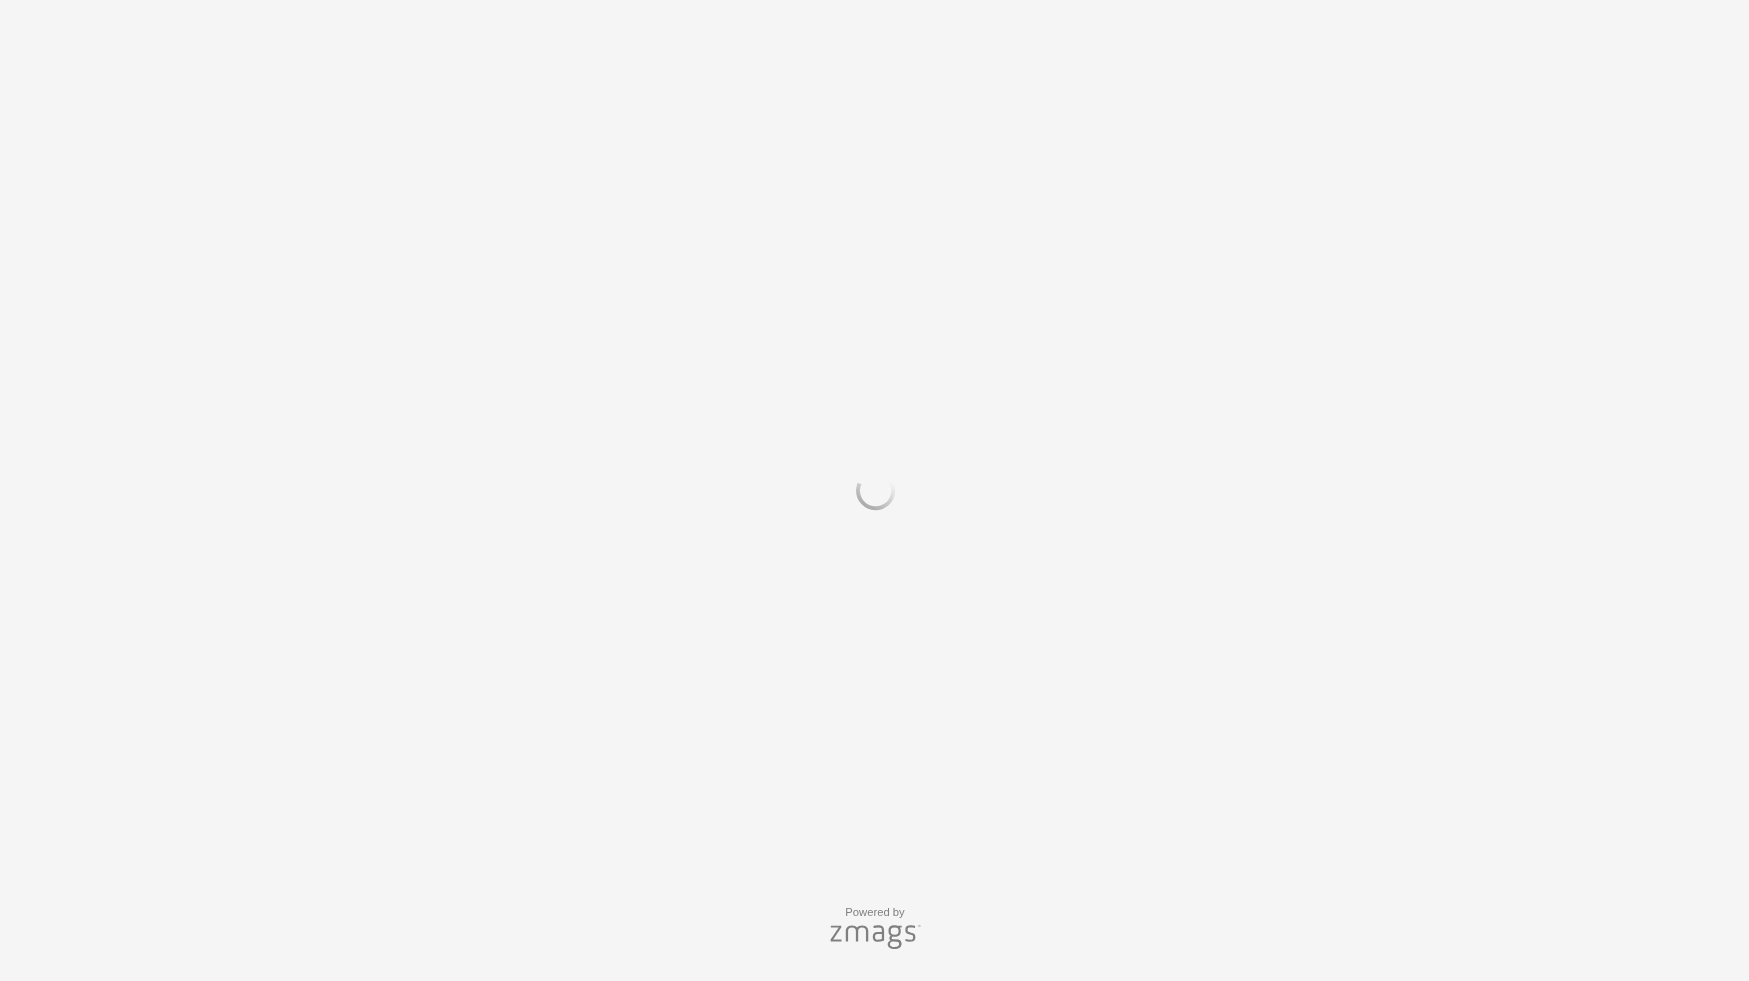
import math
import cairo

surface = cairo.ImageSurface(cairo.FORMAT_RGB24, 1749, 981)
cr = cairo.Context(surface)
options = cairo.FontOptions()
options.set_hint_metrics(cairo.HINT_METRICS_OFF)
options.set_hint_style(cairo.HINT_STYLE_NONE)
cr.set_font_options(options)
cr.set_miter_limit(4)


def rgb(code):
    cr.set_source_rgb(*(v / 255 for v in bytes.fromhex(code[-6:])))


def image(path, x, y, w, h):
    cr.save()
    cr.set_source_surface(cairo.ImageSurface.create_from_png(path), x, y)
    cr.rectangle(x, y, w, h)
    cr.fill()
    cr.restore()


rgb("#ffffff")
cr.paint()
image("img/1.png", 0, 0, 1749, 981)
surface.write_to_png("page.png")
